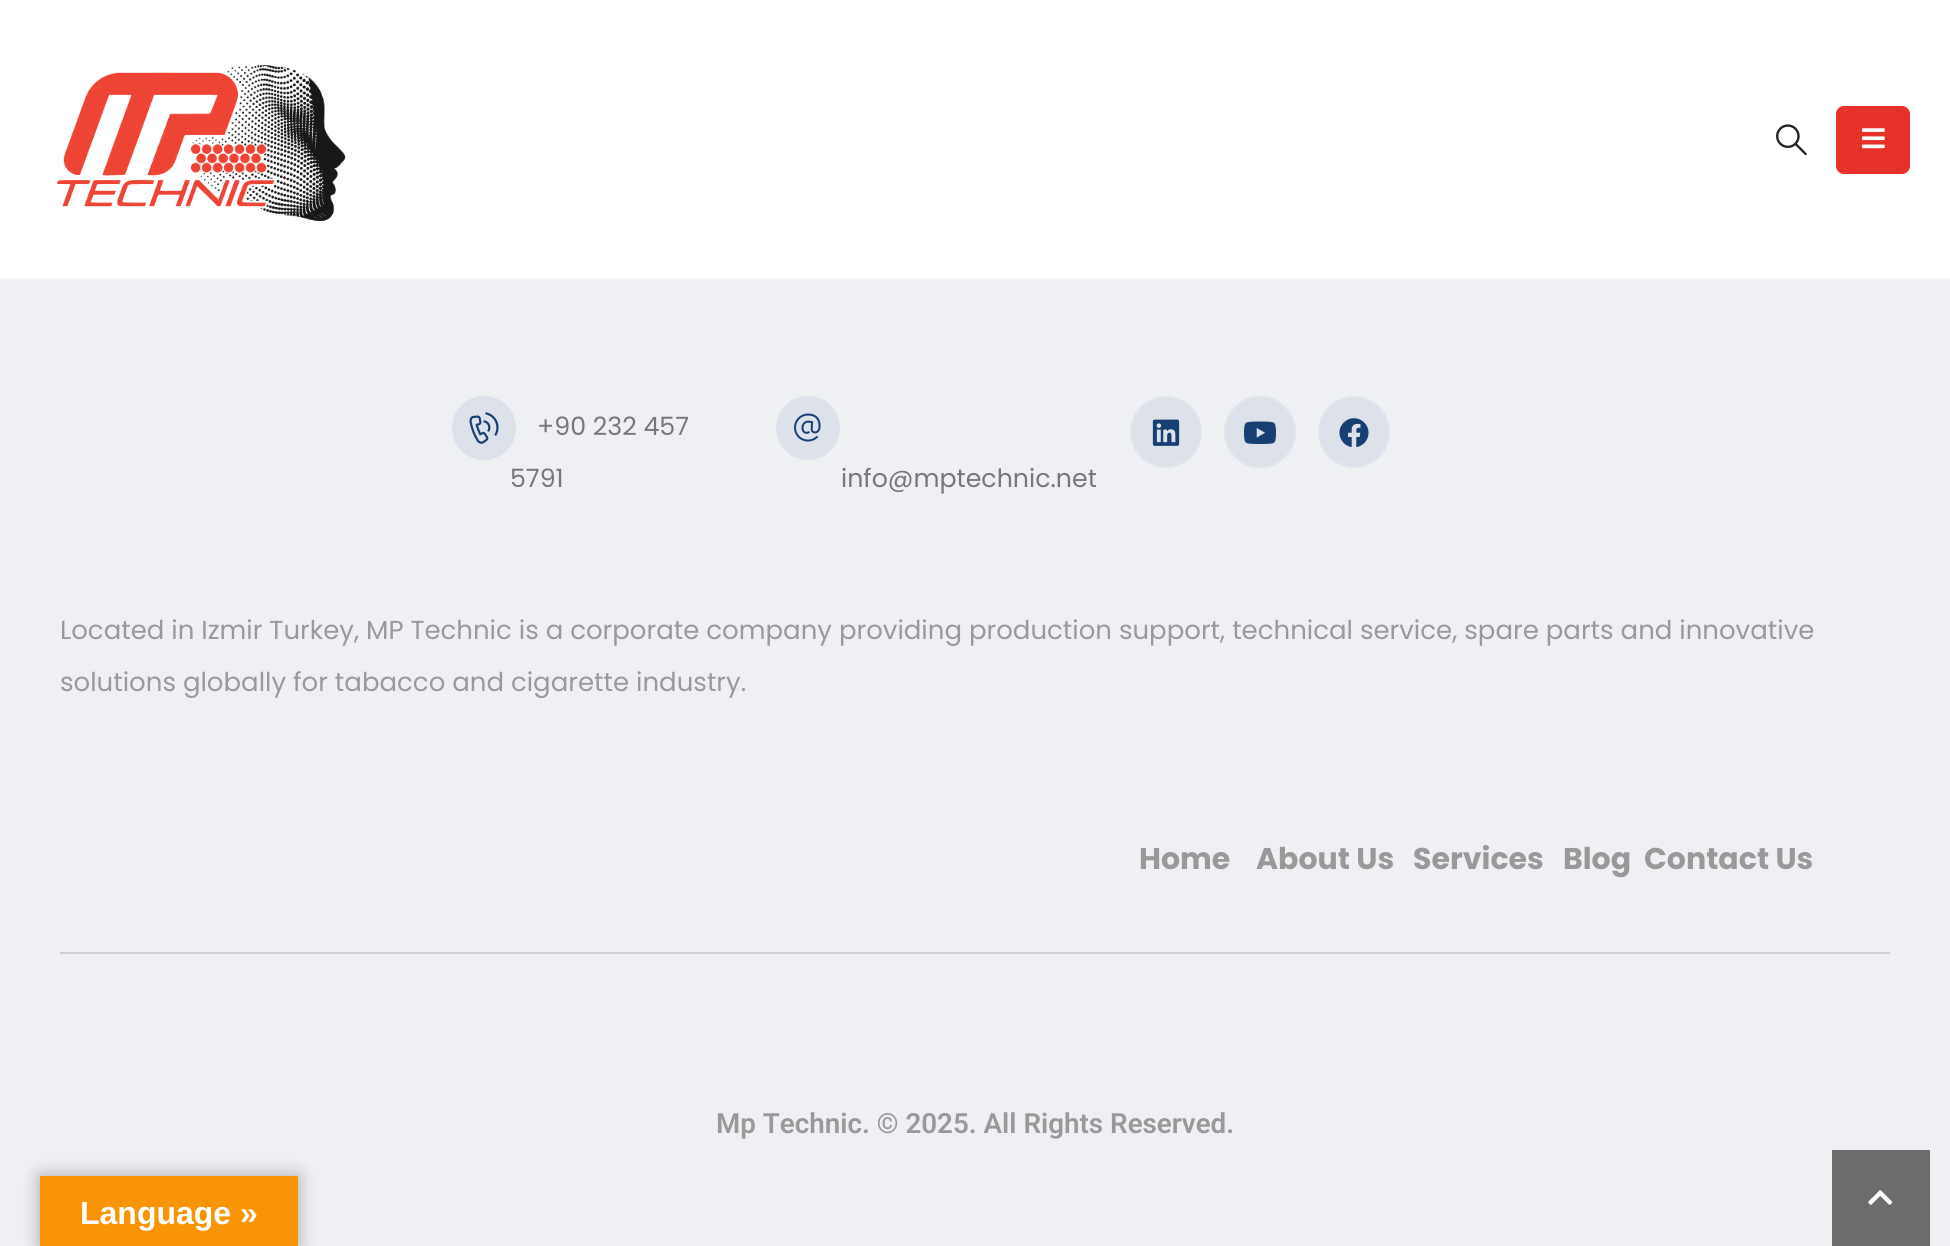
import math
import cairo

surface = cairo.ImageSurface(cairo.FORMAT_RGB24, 1950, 1246)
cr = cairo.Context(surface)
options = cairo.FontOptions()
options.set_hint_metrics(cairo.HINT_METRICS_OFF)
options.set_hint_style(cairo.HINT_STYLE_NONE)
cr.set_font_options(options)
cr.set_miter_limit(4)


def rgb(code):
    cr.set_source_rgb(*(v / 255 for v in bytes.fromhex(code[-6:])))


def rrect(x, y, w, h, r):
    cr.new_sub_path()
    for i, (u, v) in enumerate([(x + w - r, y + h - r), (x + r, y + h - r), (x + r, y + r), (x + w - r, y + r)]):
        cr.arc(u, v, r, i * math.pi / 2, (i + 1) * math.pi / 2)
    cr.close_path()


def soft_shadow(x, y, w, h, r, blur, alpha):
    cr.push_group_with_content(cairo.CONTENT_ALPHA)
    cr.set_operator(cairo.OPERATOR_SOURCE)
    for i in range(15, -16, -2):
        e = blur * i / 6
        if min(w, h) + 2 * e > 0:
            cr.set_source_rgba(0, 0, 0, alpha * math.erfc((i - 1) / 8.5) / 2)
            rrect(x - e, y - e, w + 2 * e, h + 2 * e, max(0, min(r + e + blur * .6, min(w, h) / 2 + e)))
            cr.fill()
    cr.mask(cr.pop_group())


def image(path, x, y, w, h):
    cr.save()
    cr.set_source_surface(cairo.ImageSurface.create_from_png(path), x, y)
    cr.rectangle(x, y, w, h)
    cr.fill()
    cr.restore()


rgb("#eef0f4")
cr.paint()
rgb("#ffffff")
cr.rectangle(0, 0, 1950, 278)
cr.fill()
rgb("#f5f5f5")
cr.rectangle(0, 278, 1950, 2)
cr.fill()
image("img/1.png", 57, 65, 289, 156)
image("img/2.png", 1776, 124, 31, 32)
rgb("#e7322b")
rrect(1836, 106, 74, 68, 8)
cr.fill()
image("img/3.png", 1862, 128, 23, 21)
rgb("#dde2ea")
cr.arc(484, 428, 32, 0, 2 * math.pi)
cr.fill()
image("img/4.png", 469, 412, 30, 32)
cr.arc(808, 428, 32, 0, 2 * math.pi)
cr.fill()
image("img/5.png", 794, 413, 27, 29)
cr.arc(1166, 432, 36, 0, 2 * math.pi)
cr.fill()
cr.arc(1166, 432, 35, 0, 2 * math.pi)
cr.set_source_rgba(1, 1, 1, 0.1)
cr.stroke()
image("img/6.png", 1152, 419, 28, 27)
rgb("#dde2ea")
cr.arc(1260, 432, 36, 0, 2 * math.pi)
cr.fill()
cr.arc(1260, 432, 35, 0, 2 * math.pi)
cr.set_source_rgba(1, 1, 1, 0.1)
cr.stroke()
image("img/7.png", 1244, 421, 32, 23)
rgb("#dde2ea")
cr.arc(1354, 432, 36, 0, 2 * math.pi)
cr.fill()
cr.arc(1354, 432, 35, 0, 2 * math.pi)
cr.set_source_rgba(1, 1, 1, 0.1)
cr.stroke()
image("img/8.png", 1339, 418, 30, 30)
rgb("#cfcfcf")
cr.rectangle(60, 952, 1830, 2)
cr.fill()
rgb("#000000")
soft_shadow(40, 1176, 258, 70, 0, 9, 0.3)
rgb("#f89406")
cr.rectangle(40, 1176, 258, 70)
cr.fill()
rgb("#6c6c6d")
cr.rectangle(1832, 1150, 98, 96)
cr.fill()
image("img/9.png", 1868, 1190, 25, 15)
cr.select_font_face("Poppins")
cr.set_font_size(25.25)
rgb("#777777")
for x, y, s in [
    (537, 435, "+90 232 457"),
    (510, 487, "5791"),
    (841, 487, "info@mptechnic.net"),
]:
    cr.move_to(x, y)
    cr.show_text(s)
cr.set_font_size(26)
rgb("#999999")
cr.move_to(60, 639)
cr.show_text("Located in Izmir Turkey, MP Technic is a corporate company providing production support, technical service, spare parts and innovative")
cr.move_to(60, 691)
cr.show_text("solutions globally for tabacco and cigarette industry.")
cr.select_font_face("Poppins", cairo.FONT_SLANT_NORMAL, cairo.FONT_WEIGHT_BOLD)
cr.set_font_size(30)
for x, y, s in [
    (1139, 869, "Home"),
    (1256, 869, "About Us"),
    (1413, 869, "Services"),
    (1563, 869, "Blog"),
    (1644, 869, "Contact Us"),
]:
    cr.move_to(x, y)
    cr.show_text(s)
cr.select_font_face("Roboto SemiBold")
cr.set_font_size(27.75)
cr.move_to(716, 1133)
cr.show_text("Mp Technic. © 2025. All Rights Reserved.")
cr.select_font_face("Liberation Sans", cairo.FONT_SLANT_NORMAL, cairo.FONT_WEIGHT_BOLD)
cr.set_font_size(32)
rgb("#ffffff")
cr.move_to(80, 1224)
cr.show_text("Language »")
surface.write_to_png("page.png")
